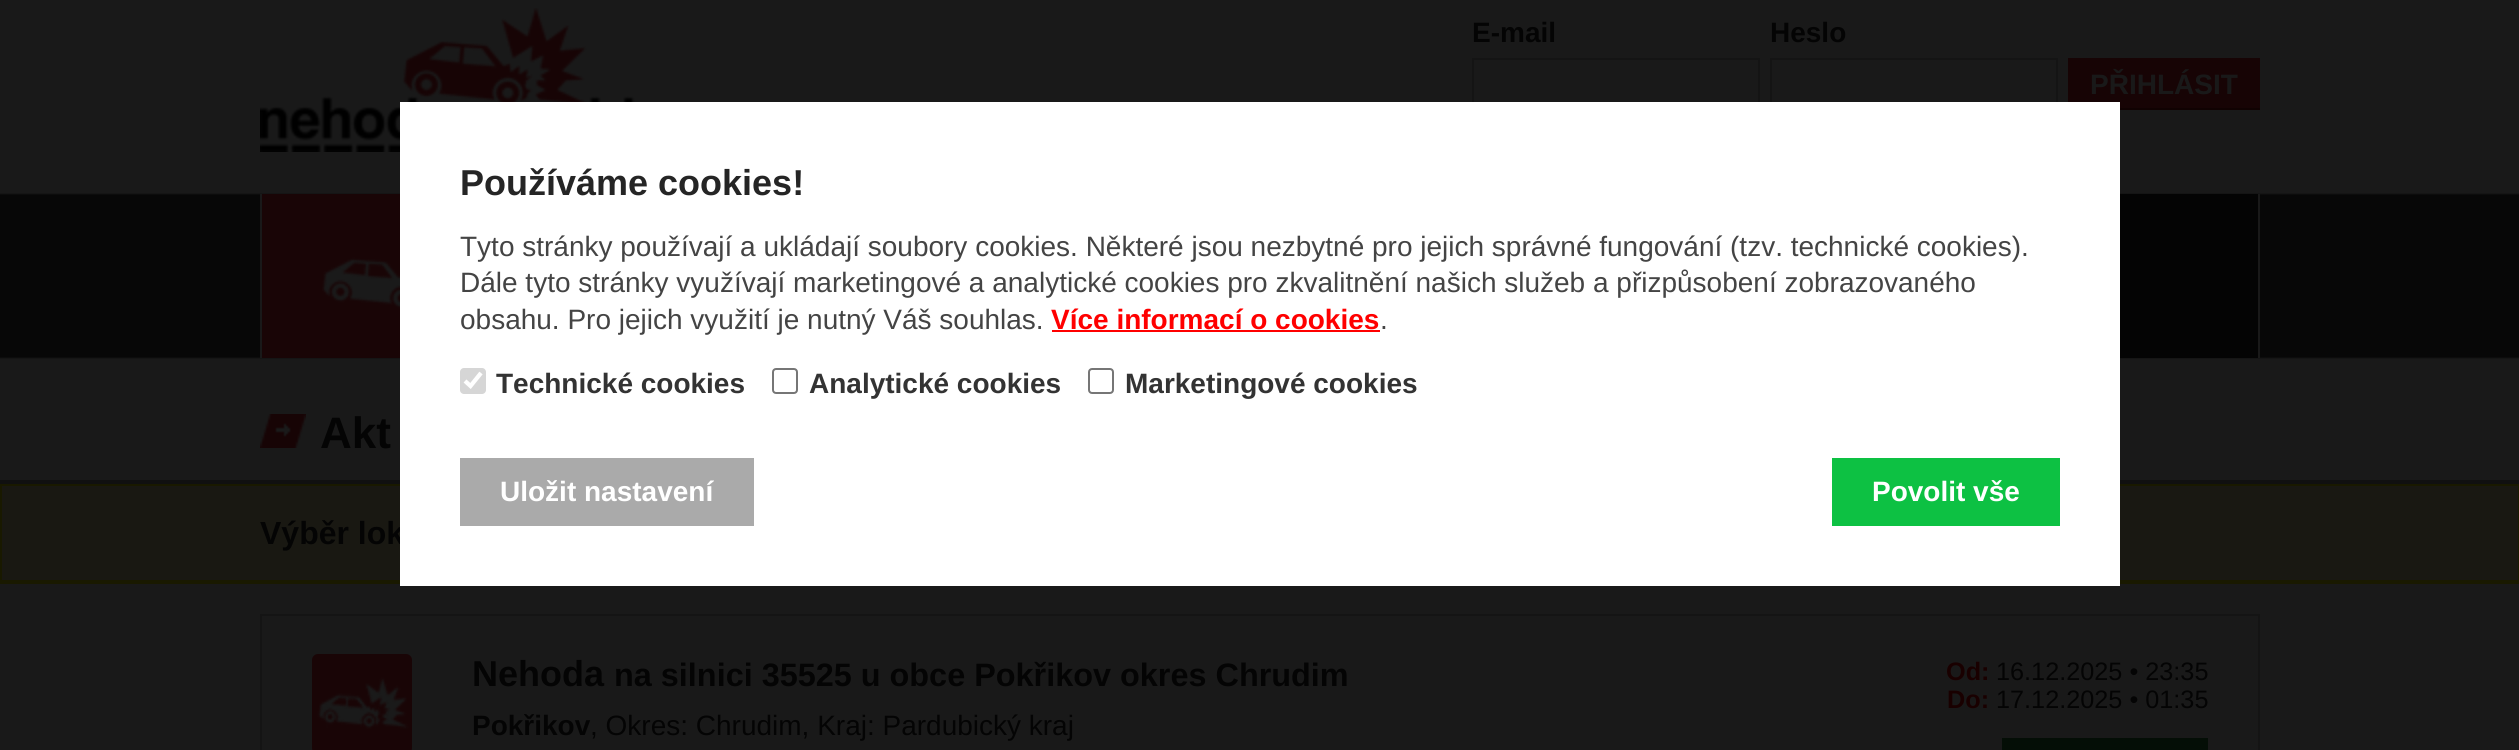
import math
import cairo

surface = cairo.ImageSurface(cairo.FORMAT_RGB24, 2519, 750)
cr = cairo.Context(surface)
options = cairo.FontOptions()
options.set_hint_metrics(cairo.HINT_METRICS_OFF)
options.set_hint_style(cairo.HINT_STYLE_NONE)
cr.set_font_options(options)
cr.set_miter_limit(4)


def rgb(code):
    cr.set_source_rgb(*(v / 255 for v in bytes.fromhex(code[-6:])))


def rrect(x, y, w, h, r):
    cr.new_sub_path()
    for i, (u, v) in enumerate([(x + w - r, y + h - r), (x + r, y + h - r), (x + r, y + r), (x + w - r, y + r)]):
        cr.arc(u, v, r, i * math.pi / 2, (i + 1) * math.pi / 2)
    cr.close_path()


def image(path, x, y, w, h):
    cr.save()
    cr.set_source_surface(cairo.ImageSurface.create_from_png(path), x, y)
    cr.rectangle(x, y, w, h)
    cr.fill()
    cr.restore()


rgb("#191919")
cr.paint()
image("img/1.png", 0, 193, 2519, 166)
image("img/2.png", 260, 8, 375, 144)
cr.rectangle(1473, 59, 286, 50)
rgb("#141414")
cr.stroke()
cr.rectangle(1771, 59, 286, 50)
cr.stroke()
for x, y, w, h, color in [
    (2070, 58, 190, 50, "#170405"),
    (2120, 108, 140, 2, "#100202"),
    (2068, 58, 2, 52, "#170405"),
    (2120, 194, 138, 164, "#040404"),
    (2258, 194, 2, 164, "#191919"),
    (260, 194, 2, 164, "#191919"),
    (262, 194, 138, 164, "#190506"),
]:
    rgb(color)
    cr.rectangle(x, y, w, h)
    cr.fill()
image("img/3.png", 322, 257, 78, 52)
rgb("#101010")
cr.rectangle(0, 480, 2519, 4)
cr.fill()
image("img/4.png", 260, 414, 46, 34)
for x, y, w, h, color in [
    (2, 486, 2516, 94, "#191812"),
    (0, 484, 2519, 2, "#191900"),
    (2518, 484, 1, 100, "#191900"),
    (0, 580, 2519, 4, "#191900"),
    (0, 484, 2, 100, "#191900"),
    (260, 614, 2000, 2, "#141414"),
    (2258, 614, 2, 136, "#141414"),
    (260, 614, 2, 136, "#141414"),
]:
    rgb(color)
    cr.rectangle(x, y, w, h)
    cr.fill()
rgb("#190506")
rrect(312, 654, 100, 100, 6)
cr.fill()
image("img/5.png", 317, 677, 92, 52)
rgb("#040e06")
cr.rectangle(2002, 738, 206, 12)
cr.fill()
cr.select_font_face("Liberation Sans", cairo.FONT_SLANT_NORMAL, cairo.FONT_WEIGHT_BOLD)
cr.set_font_size(28)
rgb("#040404")
cr.move_to(1472, 42)
cr.show_text("E-mail")
cr.move_to(1770, 42)
cr.show_text("Heslo")
rgb("#191919")
cr.move_to(2090, 94)
cr.show_text("PŘIHLÁSIT")
cr.set_font_size(44)
rgb("#040404")
cr.move_to(320, 448)
cr.show_text("Akt")
cr.set_font_size(32)
cr.move_to(260, 544)
cr.show_text("Výběr lok")
cr.set_font_size(36)
cr.move_to(472, 686)
cr.show_text("Nehoda")
cr.set_font_size(32.4)
cr.move_to(614, 686)
cr.show_text("na silnici 35525 u obce Pokřikov okres Chrudim")
cr.set_font_size(25.25)
rgb("#190000")
cr.move_to(1946, 680)
cr.show_text("Od:")
cr.select_font_face("Liberation Sans")
rgb("#040404")
cr.move_to(1996, 680)
cr.show_text("16.12.2025 • 23:35")
cr.select_font_face("Liberation Sans", cairo.FONT_SLANT_NORMAL, cairo.FONT_WEIGHT_BOLD)
rgb("#190000")
cr.move_to(1947, 708)
cr.show_text("Do:")
cr.select_font_face("Liberation Sans")
rgb("#040404")
cr.move_to(1996, 708)
cr.show_text("17.12.2025 • 01:35")
cr.select_font_face("Liberation Sans", cairo.FONT_SLANT_NORMAL, cairo.FONT_WEIGHT_BOLD)
cr.set_font_size(28)
cr.move_to(472, 735)
cr.show_text("Pokřikov")
cr.select_font_face("Liberation Sans")
cr.move_to(590, 735)
cr.show_text(", Okres: Chrudim, Kraj: Pardubický kraj")
rgb("#ffffff")
cr.rectangle(400, 102, 1720, 484)
cr.fill()
cr.select_font_face("Liberation Sans", cairo.FONT_SLANT_NORMAL, cairo.FONT_WEIGHT_BOLD)
cr.set_font_size(36)
rgb("#252525")
cr.move_to(460, 195)
cr.show_text("Používáme cookies!")
cr.select_font_face("Liberation Sans")
cr.set_font_size(28)
rgb("#444444")
for x, y, s in [
    (460, 256, "Tyto stránky používají a ukládají soubory cookies. Některé jsou nezbytné pro jejich správné fungování (tzv. technické cookies)."),
    (460, 292, "Dále tyto stránky využívají marketingové a analytické cookies pro zkvalitnění našich služeb a přizpůsobení zobrazovaného"),
    (460, 329, "obsahu. Pro jejich využití je nutný Váš souhlas."),
]:
    cr.move_to(x, y)
    cr.show_text(s)
cr.select_font_face("Liberation Sans", cairo.FONT_SLANT_NORMAL, cairo.FONT_WEIGHT_BOLD)
rgb("#ff0000")
cr.move_to(1051, 329)
cr.show_text("Více informací o cookies")
cr.rectangle(1052, 330, 328, 2)
cr.fill()
cr.select_font_face("Liberation Sans")
rgb("#444444")
cr.move_to(1380, 329)
cr.show_text(".")
rgb("#d6d6d6")
rrect(460, 368, 26, 26, 4)
cr.fill()
cr.new_path()
cr.move_to(465, 381)
cr.line_to(470.5, 386)
cr.line_to(481, 373)
rgb("#ffffff")
cr.set_line_width(4.2)
cr.stroke()
cr.select_font_face("Liberation Sans", cairo.FONT_SLANT_NORMAL, cairo.FONT_WEIGHT_BOLD)
rgb("#333333")
cr.move_to(496, 393)
cr.show_text("Technické cookies")
rrect(773, 369, 24, 24, 3)
rgb("#767676")
cr.set_line_width(2)
cr.stroke()
rgb("#333333")
cr.move_to(809, 393)
cr.show_text("Analytické cookies")
rrect(1089, 369, 24, 24, 3)
rgb("#767676")
cr.stroke()
rgb("#333333")
cr.move_to(1125, 393)
cr.show_text("Marketingové cookies")
rgb("#aaaaaa")
cr.rectangle(460, 458, 294, 68)
cr.fill()
rgb("#ffffff")
cr.move_to(500, 501)
cr.show_text("Uložit nastavení")
rgb("#0dc143")
cr.rectangle(1832, 458, 228, 68)
cr.fill()
rgb("#ffffff")
cr.move_to(1872, 501)
cr.show_text("Povolit vše")
surface.write_to_png("page.png")
